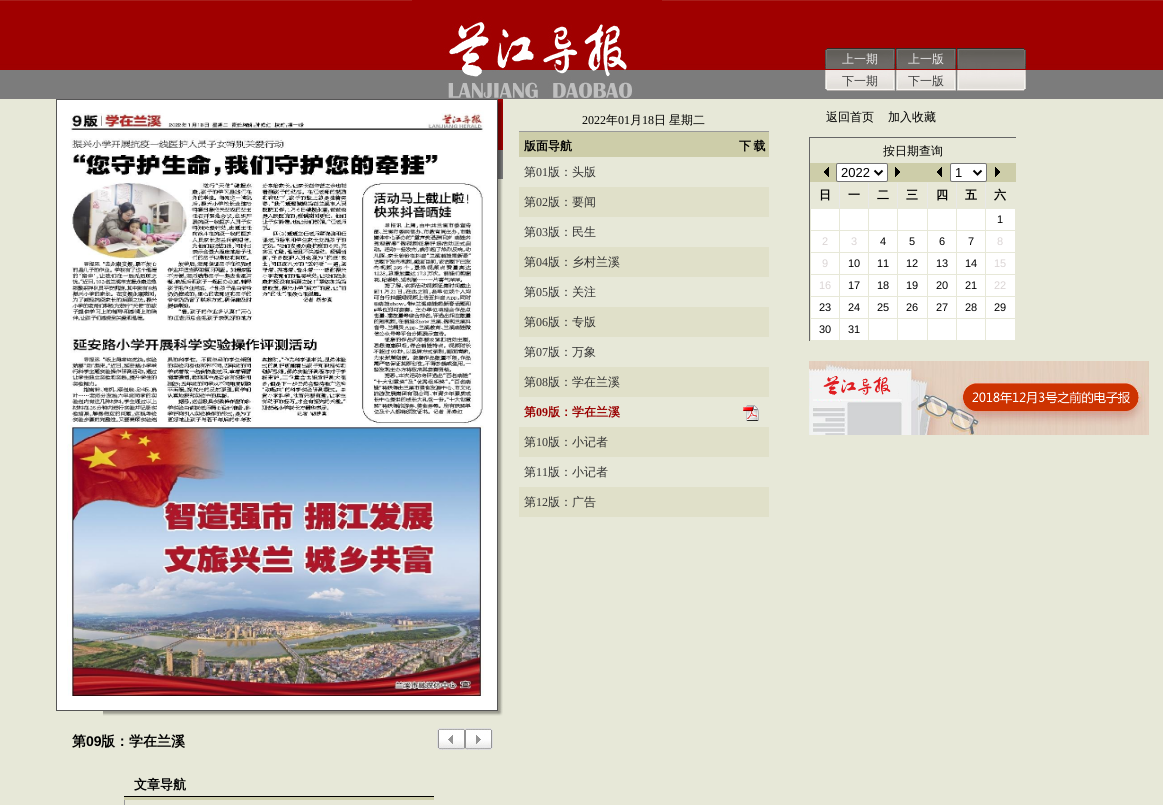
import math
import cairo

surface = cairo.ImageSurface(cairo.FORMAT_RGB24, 1163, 805)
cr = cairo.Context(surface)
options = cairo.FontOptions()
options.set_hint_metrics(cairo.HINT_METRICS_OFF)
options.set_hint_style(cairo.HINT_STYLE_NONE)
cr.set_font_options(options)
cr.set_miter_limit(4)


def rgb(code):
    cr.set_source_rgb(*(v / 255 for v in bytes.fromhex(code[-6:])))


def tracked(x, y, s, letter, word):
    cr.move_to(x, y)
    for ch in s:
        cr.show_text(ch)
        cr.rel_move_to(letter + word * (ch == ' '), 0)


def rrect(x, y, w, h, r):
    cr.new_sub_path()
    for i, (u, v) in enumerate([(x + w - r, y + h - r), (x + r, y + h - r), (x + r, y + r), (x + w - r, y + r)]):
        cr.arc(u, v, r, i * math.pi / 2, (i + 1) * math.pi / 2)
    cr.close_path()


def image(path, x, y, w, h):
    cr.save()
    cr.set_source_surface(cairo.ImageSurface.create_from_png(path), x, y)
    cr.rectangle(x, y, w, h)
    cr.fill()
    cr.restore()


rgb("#e7e8d8")
cr.paint()
image("img/1.png", 0, 0, 1163, 99)
image("img/2.png", 32, 0, 1100, 99)
image("img/3.png", 412, 0, 250, 98)
image("img/4.png", 825, 48, 70, 21)
image("img/5.png", 825, 70, 70, 21)
image("img/6.png", 896, 48, 61, 21)
image("img/7.png", 896, 70, 60, 21)
image("img/8.png", 957, 48, 69, 21)
image("img/9.png", 957, 70, 69, 21)
for x, y, w, h, color in [
    (519, 132, 250, 25, "#cdcda9"),
    (519, 131, 250, 1, "#999999"),
    (519, 187, 250, 30, "#e0e0c9"),
    (519, 247, 250, 30, "#e0e0c9"),
    (519, 307, 250, 30, "#e0e0c9"),
    (519, 367, 250, 30, "#e0e0c9"),
]:
    rgb(color)
    cr.rectangle(x, y, w, h)
    cr.fill()
image("img/10.png", 743, 405, 16, 16)
for x, y, w, h, color in [
    (519, 427, 250, 30, "#e0e0c9"),
    (519, 487, 250, 30, "#e0e0c9"),
    (809, 137, 207, 1, "#666666"),
    (809, 137, 1, 204, "#666666"),
    (810, 163, 206, 19, "#cdcda9"),
]:
    rgb(color)
    cr.rectangle(x, y, w, h)
    cr.fill()
image("img/11.png", 824, 167, 5, 10)
rgb("#ffffff")
rrect(836.5, 163.5, 51, 18, 1.5)
cr.fill_preserve()
rgb("#767676")
cr.set_line_width(1)
cr.stroke()
cr.new_path()
cr.move_to(874.5, 170.5)
cr.line_to(878.5, 174.5)
cr.line_to(882.5, 170.5)
rgb("#000000")
cr.set_line_width(2)
cr.stroke()
image("img/12.png", 895, 167, 5, 10)
image("img/11.png", 937, 167, 5, 10)
rgb("#ffffff")
rrect(950.5, 163.5, 36, 18, 1.5)
cr.fill_preserve()
rgb("#767676")
cr.set_line_width(1)
cr.stroke()
cr.new_path()
cr.move_to(973.5, 170.5)
cr.line_to(977.5, 174.5)
cr.line_to(981.5, 170.5)
rgb("#000000")
cr.set_line_width(2)
cr.stroke()
image("img/12.png", 995, 167, 5, 10)
for x, y, w, h, color in [
    (839, 183, 147, 25, "#e8e8e8"),
    (840, 183, 28, 25, "#e8e8d7"),
    (869, 183, 28, 25, "#e8e8d7"),
    (898, 183, 29, 25, "#e8e8d7"),
    (928, 183, 28, 25, "#e8e8d7"),
    (957, 183, 28, 25, "#e8e8d7"),
    (811, 209, 28, 21, "#ffffff"),
    (840, 209, 28, 21, "#ffffff"),
    (869, 209, 28, 21, "#ffffff"),
    (898, 209, 29, 21, "#ffffff"),
    (928, 209, 28, 21, "#ffffff"),
    (957, 209, 28, 21, "#ffffff"),
    (986, 209, 29, 21, "#ffffff"),
    (811, 231, 28, 21, "#ffffff"),
    (840, 231, 28, 21, "#ffffff"),
    (869, 231, 28, 21, "#ffffff"),
    (898, 231, 29, 21, "#ffffff"),
    (928, 231, 28, 21, "#ffffff"),
    (957, 231, 28, 21, "#ffffff"),
    (986, 231, 29, 21, "#ffffff"),
    (811, 253, 28, 21, "#ffffff"),
    (840, 253, 28, 21, "#ffffff"),
    (869, 253, 28, 21, "#ffffff"),
    (898, 253, 29, 21, "#ffffff"),
    (928, 253, 28, 21, "#ffffff"),
    (957, 253, 28, 21, "#ffffff"),
    (986, 253, 29, 21, "#ffffff"),
    (811, 275, 28, 21, "#ffffff"),
    (840, 275, 28, 21, "#ffffff"),
    (869, 275, 28, 21, "#ffffff"),
    (898, 275, 29, 21, "#ffffff"),
    (928, 275, 28, 21, "#ffffff"),
    (957, 275, 28, 21, "#ffffff"),
    (986, 275, 29, 21, "#ffffff"),
    (811, 297, 28, 21, "#ffffff"),
    (840, 297, 28, 21, "#ffffff"),
    (869, 297, 28, 21, "#ffffff"),
    (898, 297, 29, 21, "#ffffff"),
    (928, 297, 28, 21, "#ffffff"),
    (957, 297, 28, 21, "#ffffff"),
    (986, 297, 29, 21, "#ffffff"),
    (811, 319, 28, 21, "#ffffff"),
    (840, 319, 28, 21, "#ffffff"),
    (869, 319, 28, 21, "#ffffff"),
    (898, 319, 29, 21, "#ffffff"),
    (928, 319, 28, 21, "#ffffff"),
    (957, 319, 28, 21, "#ffffff"),
    (986, 319, 29, 21, "#ffffff"),
]:
    rgb(color)
    cr.rectangle(x, y, w, h)
    cr.fill()
image("img/13.png", 809, 361, 340, 74)
image("img/14.png", 103, 179, 400, 537)
cr.rectangle(56.5, 99.5, 441, 611)
cr.fill_preserve()
rgb("#555555")
cr.set_line_width(1)
cr.stroke()
image("img/15.png", 67, 110, 417, 586)
image("img/16.png", 498, 99, 5, 80)
image("img/17.png", 437, 728, 28, 22)
image("img/18.png", 465, 728, 28, 22)
for x, y, w, h, color in [
    (124, 797, 310, 3, "#cdcda9"),
    (124, 796, 310, 1, "#000000"),
    (124, 800, 1, 5, "#999999"),
]:
    rgb(color)
    cr.rectangle(x, y, w, h)
    cr.fill()
cr.select_font_face("WenQuanYi Zen Hei Medium")
cr.set_font_size(12)
rgb("#ebebeb")
cr.move_to(842, 63)
cr.show_text("上一期")
rgb("#3e3e3e")
cr.move_to(842, 85)
cr.show_text("下一期")
rgb("#ebebeb")
cr.move_to(908, 63)
cr.show_text("上一版")
rgb("#3e3e3e")
cr.move_to(908, 85)
cr.show_text("下一版")
cr.select_font_face("Liberation Serif")
rgb("#000000")
cr.move_to(582, 124)
cr.show_text("2022")
cr.select_font_face("WenQuanYi Zen Hei Medium")
cr.move_to(606, 124)
cr.show_text("年")
cr.select_font_face("Liberation Serif")
cr.move_to(618, 124)
cr.show_text("01")
cr.select_font_face("WenQuanYi Zen Hei Medium")
cr.move_to(630, 124)
cr.show_text("月")
cr.select_font_face("Liberation Serif")
cr.move_to(642, 124)
cr.show_text("18")
cr.select_font_face("WenQuanYi Zen Hei Medium")
cr.move_to(654, 124)
cr.show_text("日")
cr.move_to(669, 124)
cr.show_text("星期二")
cr.select_font_face("WenQuanYi Zen Hei", cairo.FONT_SLANT_NORMAL, cairo.FONT_WEIGHT_BOLD)
cr.move_to(524, 150)
cr.show_text("版面导航")
tracked(739, 150, "下 载", 0, -1)
cr.select_font_face("WenQuanYi Zen Hei Medium")
rgb("#333333")
cr.move_to(524, 176)
cr.show_text("第")
cr.select_font_face("Liberation Serif")
cr.move_to(536, 176)
cr.show_text("01")
cr.select_font_face("WenQuanYi Zen Hei Medium")
cr.move_to(548, 176)
cr.show_text("版：头版")
cr.move_to(524, 206)
cr.show_text("第")
cr.select_font_face("Liberation Serif")
cr.move_to(536, 206)
cr.show_text("02")
cr.select_font_face("WenQuanYi Zen Hei Medium")
cr.move_to(548, 206)
cr.show_text("版：要闻")
cr.move_to(524, 236)
cr.show_text("第")
cr.select_font_face("Liberation Serif")
cr.move_to(536, 236)
cr.show_text("03")
cr.select_font_face("WenQuanYi Zen Hei Medium")
cr.move_to(548, 236)
cr.show_text("版：民生")
cr.move_to(524, 266)
cr.show_text("第")
cr.select_font_face("Liberation Serif")
cr.move_to(536, 266)
cr.show_text("04")
cr.select_font_face("WenQuanYi Zen Hei Medium")
cr.move_to(548, 266)
cr.show_text("版：乡村兰溪")
cr.move_to(524, 296)
cr.show_text("第")
cr.select_font_face("Liberation Serif")
cr.move_to(536, 296)
cr.show_text("05")
cr.select_font_face("WenQuanYi Zen Hei Medium")
cr.move_to(548, 296)
cr.show_text("版：关注")
cr.move_to(524, 326)
cr.show_text("第")
cr.select_font_face("Liberation Serif")
cr.move_to(536, 326)
cr.show_text("06")
cr.select_font_face("WenQuanYi Zen Hei Medium")
cr.move_to(548, 326)
cr.show_text("版：专版")
cr.move_to(524, 356)
cr.show_text("第")
cr.select_font_face("Liberation Serif")
cr.move_to(536, 356)
cr.show_text("07")
cr.select_font_face("WenQuanYi Zen Hei Medium")
cr.move_to(548, 356)
cr.show_text("版：万象")
cr.move_to(524, 386)
cr.show_text("第")
cr.select_font_face("Liberation Serif")
cr.move_to(536, 386)
cr.show_text("08")
cr.select_font_face("WenQuanYi Zen Hei Medium")
cr.move_to(548, 386)
cr.show_text("版：学在兰溪")
cr.select_font_face("WenQuanYi Zen Hei", cairo.FONT_SLANT_NORMAL, cairo.FONT_WEIGHT_BOLD)
rgb("#990000")
cr.move_to(524, 416)
cr.show_text("第")
cr.select_font_face("Liberation Serif", cairo.FONT_SLANT_NORMAL, cairo.FONT_WEIGHT_BOLD)
cr.move_to(536, 416)
cr.show_text("09")
cr.select_font_face("WenQuanYi Zen Hei", cairo.FONT_SLANT_NORMAL, cairo.FONT_WEIGHT_BOLD)
cr.move_to(548, 416)
cr.show_text("版：学在兰溪")
cr.select_font_face("WenQuanYi Zen Hei Medium")
rgb("#333333")
cr.move_to(524, 446)
cr.show_text("第")
cr.select_font_face("Liberation Serif")
cr.move_to(536, 446)
cr.show_text("10")
cr.select_font_face("WenQuanYi Zen Hei Medium")
cr.move_to(548, 446)
cr.show_text("版：小记者")
cr.move_to(524, 476)
cr.show_text("第")
cr.select_font_face("Liberation Serif")
cr.move_to(536, 476)
cr.show_text("11")
cr.select_font_face("WenQuanYi Zen Hei Medium")
cr.move_to(548, 476)
cr.show_text("版：小记者")
cr.move_to(524, 506)
cr.show_text("第")
cr.select_font_face("Liberation Serif")
cr.move_to(536, 506)
cr.show_text("12")
cr.select_font_face("WenQuanYi Zen Hei Medium")
cr.move_to(548, 506)
cr.show_text("版：广告")
rgb("#000000")
for x, y, s in [
    (826, 121, "返回首页"),
    (888, 121, "加入收藏"),
    (883, 155, "按日期查询"),
]:
    cr.move_to(x, y)
    cr.show_text(s)
cr.select_font_face("Liberation Sans")
cr.set_font_size(13)
cr.move_to(841, 177)
cr.show_text("2022")
cr.move_to(955, 177)
cr.show_text("1")
cr.select_font_face("WenQuanYi Zen Hei", cairo.FONT_SLANT_NORMAL, cairo.FONT_WEIGHT_BOLD)
cr.set_font_size(12)
for x, y, s in [
    (819, 199, "日"),
    (848, 199, "一"),
    (877, 199, "二"),
    (906, 199, "三"),
    (936, 199, "四"),
    (965, 199, "五"),
    (994, 199, "六"),
]:
    cr.move_to(x, y)
    cr.show_text(s)
cr.select_font_face("Liberation Sans")
cr.set_font_size(11)
cr.move_to(997, 223)
cr.show_text("1")
rgb("#dad4d4")
cr.move_to(822, 245)
cr.show_text("2")
cr.move_to(851, 245)
cr.show_text("3")
rgb("#000000")
for x, y, s in [
    (880, 245, "4"),
    (909, 245, "5"),
    (939, 245, "6"),
    (968, 245, "7"),
]:
    cr.move_to(x, y)
    cr.show_text(s)
rgb("#dad4d4")
cr.move_to(997, 245)
cr.show_text("8")
cr.move_to(822, 267)
cr.show_text("9")
rgb("#000000")
for x, y, s in [
    (848, 267, "10"),
    (877, 267, "11"),
    (906, 267, "12"),
    (936, 267, "13"),
    (965, 267, "14"),
]:
    cr.move_to(x, y)
    cr.show_text(s)
rgb("#dad4d4")
cr.move_to(994, 267)
cr.show_text("15")
cr.move_to(819, 289)
cr.show_text("16")
rgb("#000000")
for x, y, s in [
    (848, 289, "17"),
    (877, 289, "18"),
    (906, 289, "19"),
    (936, 289, "20"),
    (965, 289, "21"),
]:
    cr.move_to(x, y)
    cr.show_text(s)
rgb("#dad4d4")
cr.move_to(994, 289)
cr.show_text("22")
rgb("#000000")
for x, y, s in [
    (819, 311, "23"),
    (848, 311, "24"),
    (877, 311, "25"),
    (906, 311, "26"),
    (936, 311, "27"),
    (965, 311, "28"),
    (994, 311, "29"),
    (819, 333, "30"),
    (848, 333, "31"),
]:
    cr.move_to(x, y)
    cr.show_text(s)
cr.select_font_face("WenQuanYi Zen Hei", cairo.FONT_SLANT_NORMAL, cairo.FONT_WEIGHT_BOLD)
cr.set_font_size(14)
cr.move_to(72, 746)
cr.show_text("第")
cr.select_font_face("Liberation Sans", cairo.FONT_SLANT_NORMAL, cairo.FONT_WEIGHT_BOLD)
cr.move_to(86, 746)
cr.show_text("09")
cr.select_font_face("WenQuanYi Zen Hei", cairo.FONT_SLANT_NORMAL, cairo.FONT_WEIGHT_BOLD)
cr.move_to(101, 746)
cr.show_text("版：学在兰溪")
cr.set_font_size(13)
cr.move_to(134, 789)
cr.show_text("文章导航")
surface.write_to_png("page.png")
